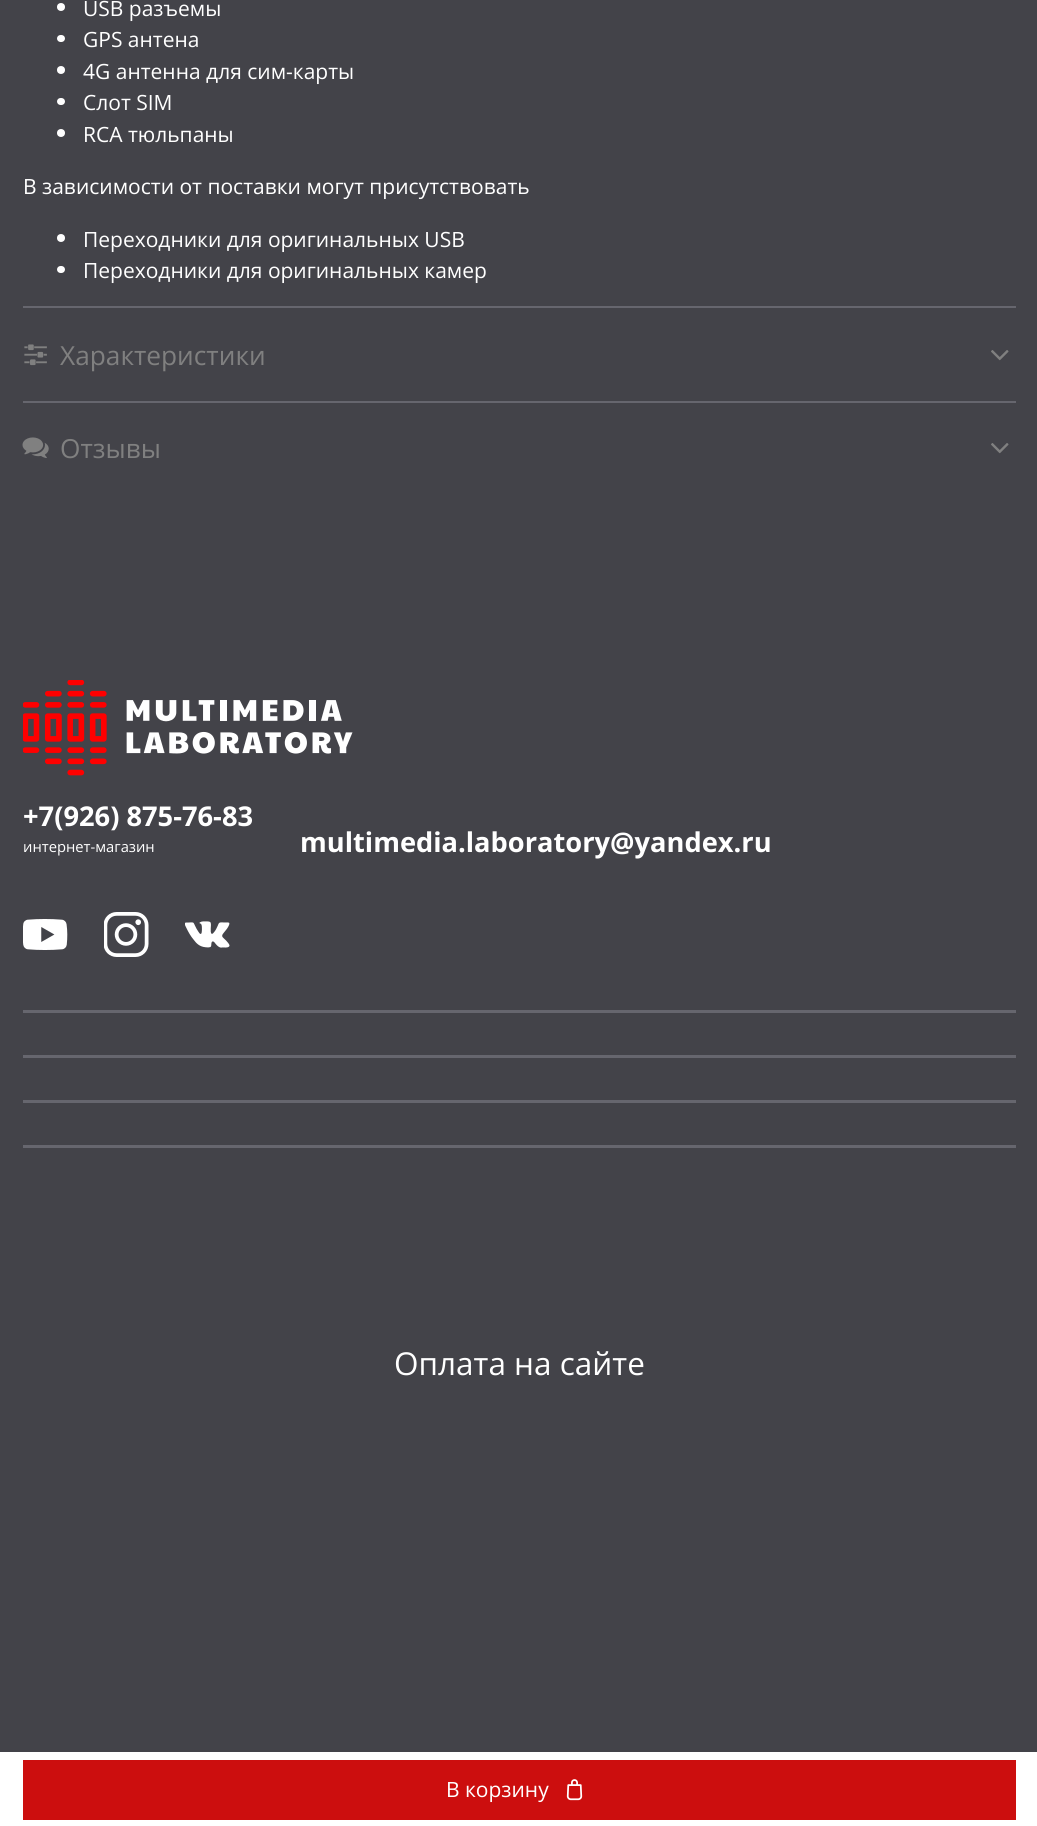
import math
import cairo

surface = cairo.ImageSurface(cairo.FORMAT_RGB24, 1037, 1826)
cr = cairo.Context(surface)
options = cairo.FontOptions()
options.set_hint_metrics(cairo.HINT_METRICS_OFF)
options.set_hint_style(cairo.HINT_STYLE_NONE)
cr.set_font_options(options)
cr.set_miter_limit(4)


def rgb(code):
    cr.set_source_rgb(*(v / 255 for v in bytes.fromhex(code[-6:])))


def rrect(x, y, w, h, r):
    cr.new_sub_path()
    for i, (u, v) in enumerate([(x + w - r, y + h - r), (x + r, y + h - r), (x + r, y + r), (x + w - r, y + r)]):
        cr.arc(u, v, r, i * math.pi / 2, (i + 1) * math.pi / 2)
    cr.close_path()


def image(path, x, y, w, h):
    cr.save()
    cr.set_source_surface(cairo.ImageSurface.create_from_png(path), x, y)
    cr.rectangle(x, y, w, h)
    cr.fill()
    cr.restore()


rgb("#434349")
cr.paint()
rgb("#ffffff")
cr.arc(61, 7, 4, 0, 2 * math.pi)
cr.fill()
rrect(57, 35, 8, 7, 3.5)
cr.fill()
cr.arc(61, 70, 4, 0, 2 * math.pi)
cr.fill()
rrect(57, 98, 8, 7, 3.5)
cr.fill()
cr.arc(61, 133, 4, 0, 2 * math.pi)
cr.fill()
cr.arc(61, 238, 4, 0, 2 * math.pi)
cr.fill()
rrect(57, 266, 8, 7, 3.5)
cr.fill()
rgb("#66666e")
cr.rectangle(23, 306, 993, 2)
cr.fill()
image("img/1.png", 24, 344, 23, 22)
image("img/2.png", 991, 350, 18, 11)
cr.rectangle(23, 401, 993, 2)
cr.fill()
image("img/3.png", 22, 437, 27, 21)
image("img/2.png", 991, 443, 18, 11)
rgb("#ffffff")
cr.rectangle(0, 1752, 1037, 74)
cr.fill()
rgb("#cc0e0e")
cr.rectangle(23, 1760, 993, 60)
cr.fill()
image("img/4.png", 566, 1779, 17, 22)
image("img/5.png", 23, 680, 330, 96)
image("img/6.png", 23, 919, 45, 31)
image("img/7.png", 104, 912, 45, 45)
image("img/8.png", 185, 921, 45, 27)
for x, y, w, h, color in [
    (23, 1010, 993, 3, "#66666e"),
    (23, 1055, 993, 3, "#66666e"),
    (23, 1100, 993, 3, "#66666e"),
    (23, 1145, 993, 3, "#66666e"),
]:
    rgb(color)
    cr.rectangle(x, y, w, h)
    cr.fill()
cr.select_font_face("Open Sans")
cr.set_font_size(21)
rgb("#ffffff")
for x, y, s in [
    (83, 16, "USB разъемы"),
    (83, 47, "GPS антена"),
    (83, 79, "4G антенна для сим-карты"),
    (83, 110, "Слот SIM"),
    (83, 142, "RCA тюльпаны"),
    (23, 194, "В зависимости от поставки могут присутствовать"),
    (83, 247, "Переходники для оригинальных USB"),
    (83, 278, "Переходники для оригинальных камер"),
]:
    cr.move_to(x, y)
    cr.show_text(s)
cr.set_font_size(26.25)
rgb("#808080")
cr.move_to(60, 365)
cr.show_text("Характеристики")
cr.move_to(60, 458)
cr.show_text("Отзывы")
cr.set_font_size(21)
rgb("#ffffff")
cr.move_to(446, 1797)
cr.show_text("В корзину")
cr.select_font_face("Open Sans", cairo.FONT_SLANT_NORMAL, cairo.FONT_WEIGHT_BOLD)
cr.set_font_size(27.25)
cr.move_to(23, 826)
cr.show_text("+7(926) 875-76-83")
cr.select_font_face("Open Sans")
cr.set_font_size(14.75)
cr.move_to(23, 852)
cr.show_text("интернет-магазин")
cr.select_font_face("Open Sans", cairo.FONT_SLANT_NORMAL, cairo.FONT_WEIGHT_BOLD)
cr.set_font_size(27.25)
cr.move_to(300, 852)
cr.show_text("multimedia.laboratory@yandex.ru")
cr.select_font_face("Open Sans")
cr.set_font_size(31.5)
cr.move_to(394, 1375)
cr.show_text("Оплата на сайте")
surface.write_to_png("page.png")
